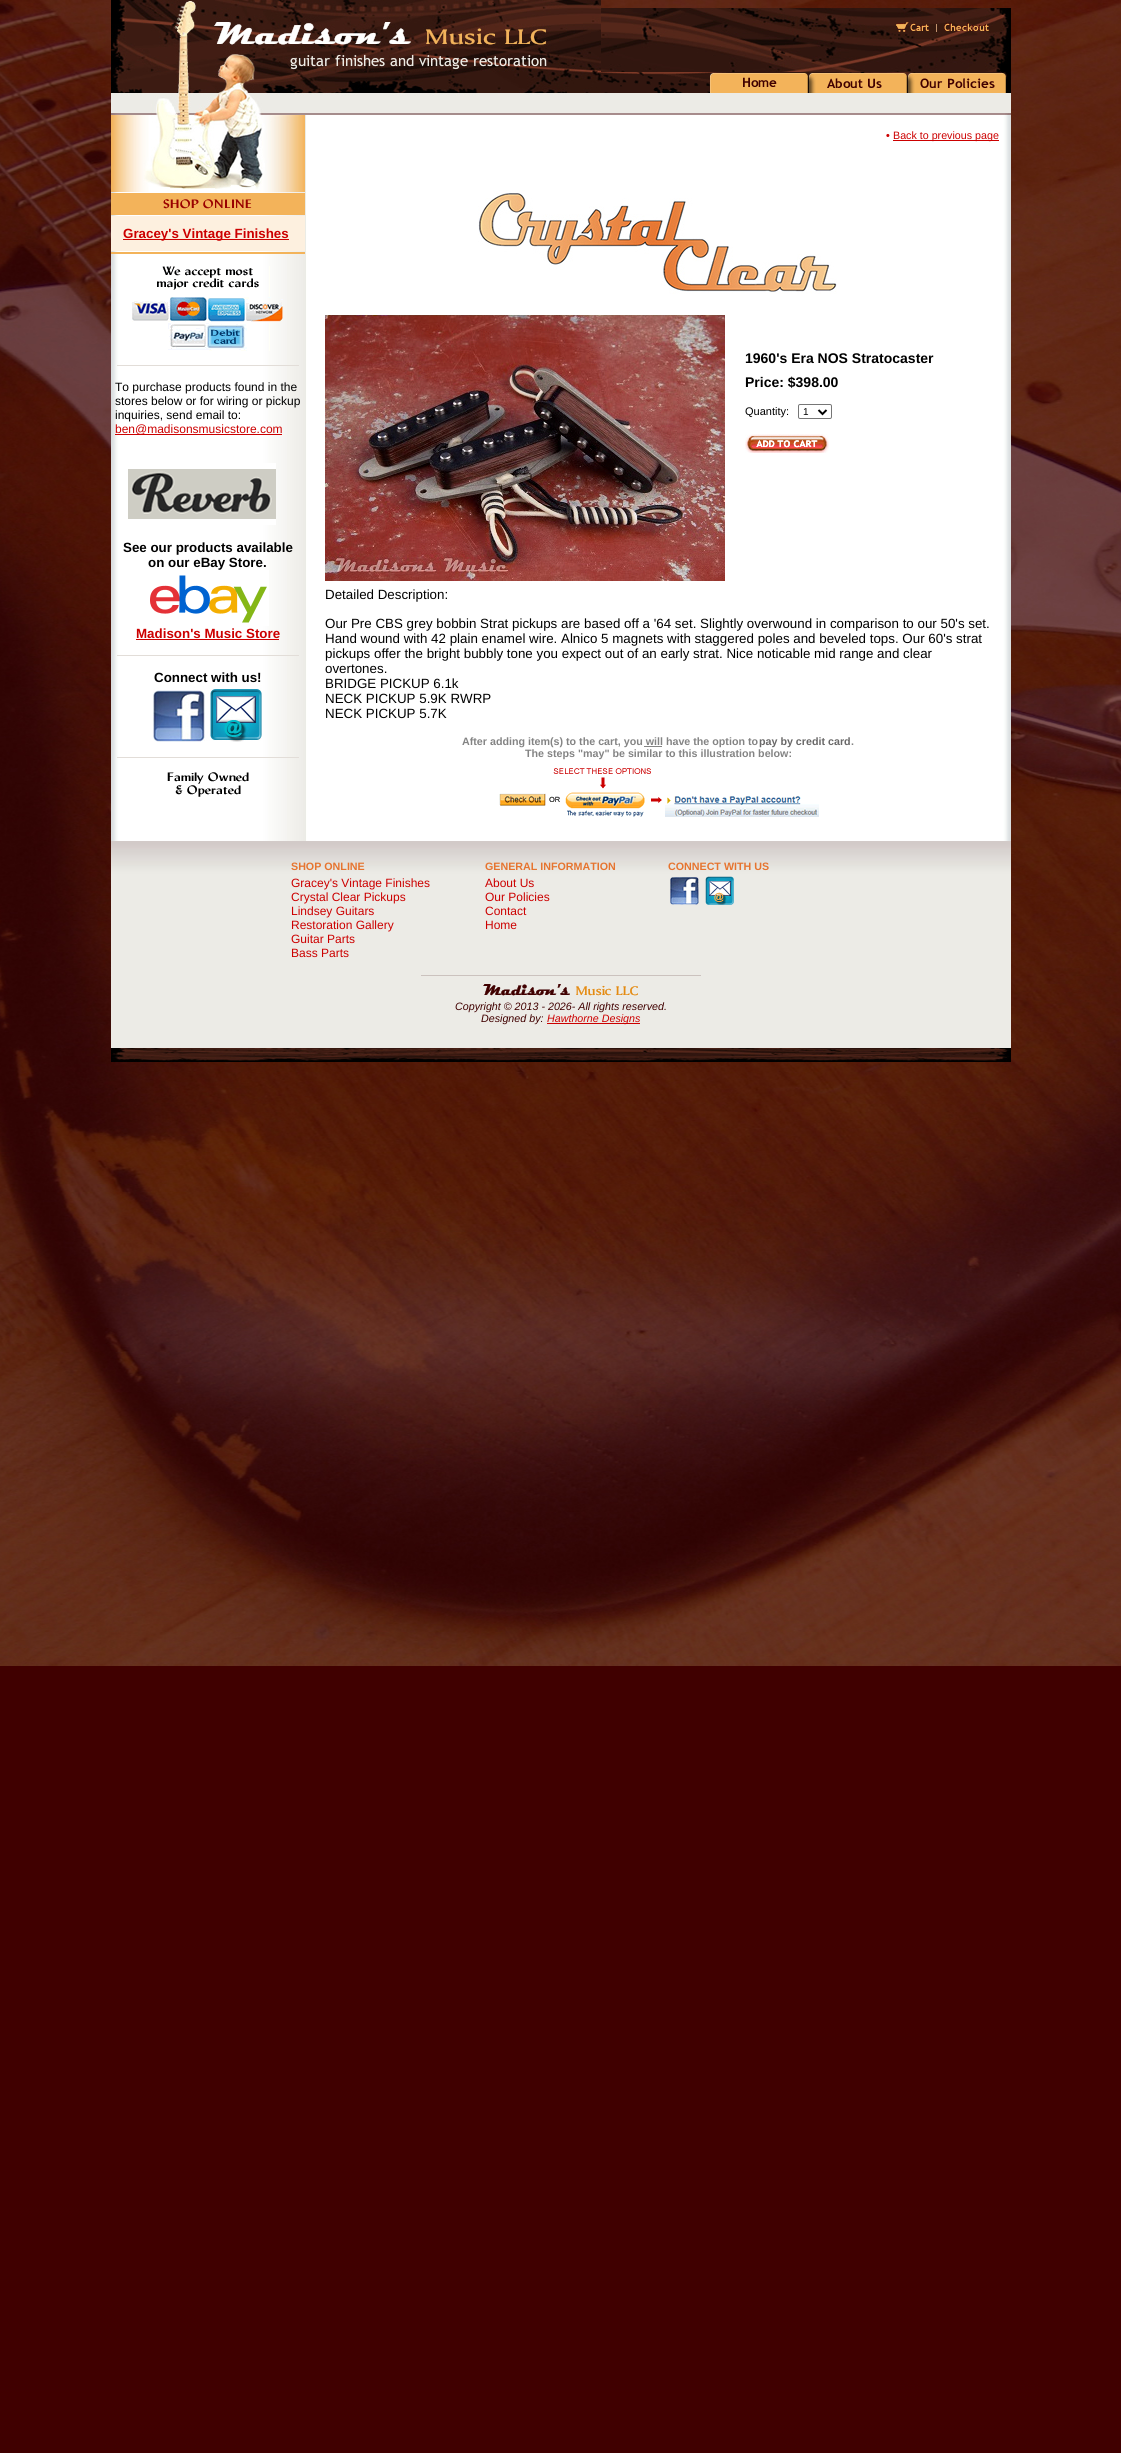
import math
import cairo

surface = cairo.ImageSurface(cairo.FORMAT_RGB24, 1121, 2453)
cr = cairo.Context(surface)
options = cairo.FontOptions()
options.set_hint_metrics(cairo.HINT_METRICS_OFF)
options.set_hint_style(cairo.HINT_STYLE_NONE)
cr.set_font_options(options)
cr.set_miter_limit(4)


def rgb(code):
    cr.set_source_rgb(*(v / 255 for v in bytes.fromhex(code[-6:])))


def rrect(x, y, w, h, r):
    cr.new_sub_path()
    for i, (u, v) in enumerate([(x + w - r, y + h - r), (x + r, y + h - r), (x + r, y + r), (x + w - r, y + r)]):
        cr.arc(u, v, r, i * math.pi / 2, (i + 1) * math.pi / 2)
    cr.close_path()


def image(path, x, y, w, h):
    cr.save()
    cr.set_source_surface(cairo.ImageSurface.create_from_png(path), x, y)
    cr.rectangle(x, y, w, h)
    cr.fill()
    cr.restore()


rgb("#400000")
cr.paint()
image("img/1.png", 0, 0, 1121, 1666)
image("img/2.png", 111, 0, 490, 115)
image("img/3.png", 601, 8, 410, 64)
image("img/4.png", 896, 22, 33, 10)
rgb("#c1926e")
cr.rectangle(936, 24, 1, 8)
cr.fill()
image("img/5.png", 944, 23, 45, 8)
image("img/6.png", 601, 72, 107, 21)
image("img/7.png", 708, 72, 102, 21)
image("img/8.png", 810, 72, 98, 21)
image("img/9.png", 908, 72, 99, 21)
rgb("#000000")
cr.rectangle(1007, 72, 4, 21)
cr.fill()
image("img/10.png", 601, 93, 410, 22)
image("img/11.png", 111, 192, 194, 649)
image("img/12.png", 111, 115, 194, 77)
rgb("#f3b35a")
cr.rectangle(111, 193, 194, 22)
cr.fill()
image("img/13.png", 163, 199, 89, 10)
for x, y, w, h, color in [
    (111, 216, 194, 35, "#fdf0df"),
    (123, 239, 166, 1, "#cc0000"),
    (111, 252, 194, 2, "#f3b35a"),
]:
    rgb(color)
    cr.rectangle(x, y, w, h)
    cr.fill()
image("img/14.png", 131, 266, 152, 85)
rgb("#e2ddd8")
cr.rectangle(117, 365, 182, 1)
cr.fill()
rgb("#cc0000")
cr.rectangle(115, 434, 167, 1)
cr.fill()
image("img/15.png", 128, 463, 148, 62)
image("img/16.png", 150, 570, 119, 56)
cr.rectangle(136, 639, 143, 1)
cr.fill()
rgb("#e2ddd8")
cr.rectangle(117, 655, 182, 1)
cr.fill()
image("img/17.png", 153, 685, 109, 57)
cr.rectangle(117, 757, 182, 1)
cr.fill()
image("img/18.png", 167, 772, 82, 25)
image("img/19.png", 305, 115, 706, 726)
rgb("#cc0000")
cr.rectangle(893, 140, 106, 1)
cr.fill()
image("img/20.png", 478, 190, 359, 104)
image("img/21.png", 325, 315, 400, 266)
rrect(798.5, 404.5, 33, 14, 1.5)
rgb("#767676")
cr.set_line_width(1)
cr.stroke()
cr.new_path()
cr.move_to(818.5, 410)
cr.line_to(822.5, 414)
cr.line_to(826.5, 410)
rgb("#000000")
cr.set_line_width(2)
cr.stroke()
image("img/22.png", 745, 434, 84, 19)
rgb("#848484")
cr.rectangle(644, 746, 18, 1)
cr.fill()
image("img/23.png", 499, 768, 320, 49)
image("img/24.png", 111, 841, 900, 207)
image("img/25.png", 670, 877, 29, 28)
image("img/26.png", 705, 876, 29, 29)
image("img/27.png", 483, 984, 155, 12)
rgb("#cbc2be")
cr.rectangle(421, 975, 280, 1)
cr.fill()
rgb("#cc0000")
cr.rectangle(547, 1023, 93, 1)
cr.fill()
image("img/28.png", 111, 1048, 900, 14)
cr.select_font_face("Liberation Sans", cairo.FONT_SLANT_NORMAL, cairo.FONT_WEIGHT_BOLD)
cr.set_font_size(13.35)
cr.move_to(123, 238)
cr.show_text("Gracey's Vintage Finishes")
cr.select_font_face("Liberation Sans")
cr.set_font_size(12)
rgb("#000000")
for x, y, s in [
    (115, 391, "To purchase products found in the"),
    (115, 405, "stores below or for wiring or pickup"),
    (115, 419, "inquiries, send email to:"),
]:
    cr.move_to(x, y)
    cr.show_text(s)
rgb("#cc0000")
cr.move_to(115, 433)
cr.show_text("ben@madisonsmusicstore.com")
cr.select_font_face("Liberation Sans", cairo.FONT_SLANT_NORMAL, cairo.FONT_WEIGHT_BOLD)
cr.set_font_size(13.35)
rgb("#000000")
cr.move_to(123, 552)
cr.show_text("See our products available")
cr.move_to(148, 567)
cr.show_text("on our eBay Store.")
rgb("#cc0000")
cr.move_to(136, 638)
cr.show_text("Madison's Music Store")
rgb("#000000")
cr.move_to(154, 682)
cr.show_text("Connect with us!")
cr.set_font_size(10.7)
rgb("#cc0000")
cr.move_to(886, 139)
cr.show_text("•")
cr.select_font_face("Liberation Sans")
cr.move_to(893, 139)
cr.show_text("Back to previous page")
cr.select_font_face("Liberation Sans", cairo.FONT_SLANT_NORMAL, cairo.FONT_WEIGHT_BOLD)
cr.set_font_size(14)
rgb("#000000")
cr.move_to(745, 363)
cr.show_text("1960's Era NOS Stratocaster")
cr.move_to(745, 387)
cr.show_text("Price: $398.00")
cr.select_font_face("Liberation Sans")
cr.set_font_size(11)
cr.move_to(745, 415)
cr.show_text("Quantity:")
cr.set_font_size(10)
cr.move_to(803, 415)
cr.show_text("1")
cr.set_font_size(13.35)
for x, y, s in [
    (325, 599, "Detailed Description:"),
    (325, 628, "Our Pre CBS grey bobbin Strat pickups are based off a '64 set. Slightly overwound in comparison to our 50's set."),
    (325, 643, "Hand wound with 42 plain enamel wire. Alnico 5 magnets with staggered poles and beveled tops. Our 60's strat"),
    (325, 658, "pickups offer the bright bubbly tone you expect out of an early strat. Nice noticable mid range and clear"),
    (325, 673, "overtones."),
    (325, 688, "BRIDGE PICKUP 6.1k"),
    (325, 703, "NECK PICKUP 5.9K RWRP"),
    (325, 718, "NECK PICKUP 5.7K"),
]:
    cr.move_to(x, y)
    cr.show_text(s)
cr.select_font_face("Liberation Sans", cairo.FONT_SLANT_NORMAL, cairo.FONT_WEIGHT_BOLD)
cr.set_font_size(10.7)
rgb("#848484")
cr.move_to(462, 745)
cr.show_text("After adding item(s) to the cart, you will have the option to")
rgb("#696868")
cr.move_to(759, 745)
cr.show_text("pay by credit card")
rgb("#848484")
cr.move_to(851, 745)
cr.show_text(".")
cr.move_to(525, 757)
cr.show_text("The steps \"may\" be similar to this illustration below:")
rgb("#e6742f")
cr.move_to(291, 870)
cr.show_text("SHOP ONLINE")
cr.select_font_face("Liberation Sans")
cr.set_font_size(12)
rgb("#cc0000")
for x, y, s in [
    (291, 887, "Gracey's Vintage Finishes"),
    (291, 901, "Crystal Clear Pickups"),
    (291, 915, "Lindsey Guitars"),
    (291, 929, "Restoration Gallery"),
    (291, 943, "Guitar Parts"),
    (291, 957, "Bass Parts"),
]:
    cr.move_to(x, y)
    cr.show_text(s)
cr.select_font_face("Liberation Sans", cairo.FONT_SLANT_NORMAL, cairo.FONT_WEIGHT_BOLD)
cr.set_font_size(10.7)
rgb("#e6742f")
cr.move_to(485, 870)
cr.show_text("GENERAL INFORMATION")
cr.select_font_face("Liberation Sans")
cr.set_font_size(12)
rgb("#cc0000")
for x, y, s in [
    (485, 887, "About Us"),
    (485, 901, "Our Policies"),
    (485, 915, "Contact"),
    (485, 929, "Home"),
]:
    cr.move_to(x, y)
    cr.show_text(s)
cr.select_font_face("Liberation Sans", cairo.FONT_SLANT_NORMAL, cairo.FONT_WEIGHT_BOLD)
cr.set_font_size(10.7)
rgb("#e6742f")
cr.move_to(668, 870)
cr.show_text("CONNECT WITH US")
cr.select_font_face("Liberation Sans", cairo.FONT_SLANT_ITALIC)
rgb("#400000")
cr.move_to(455, 1010)
cr.show_text("Copyright © 2013 - 2026- All rights reserved.")
cr.move_to(481, 1022)
cr.show_text("Designed by:")
rgb("#cc0000")
cr.move_to(547, 1022)
cr.show_text("Hawthorne Designs")
surface.write_to_png("page.png")
